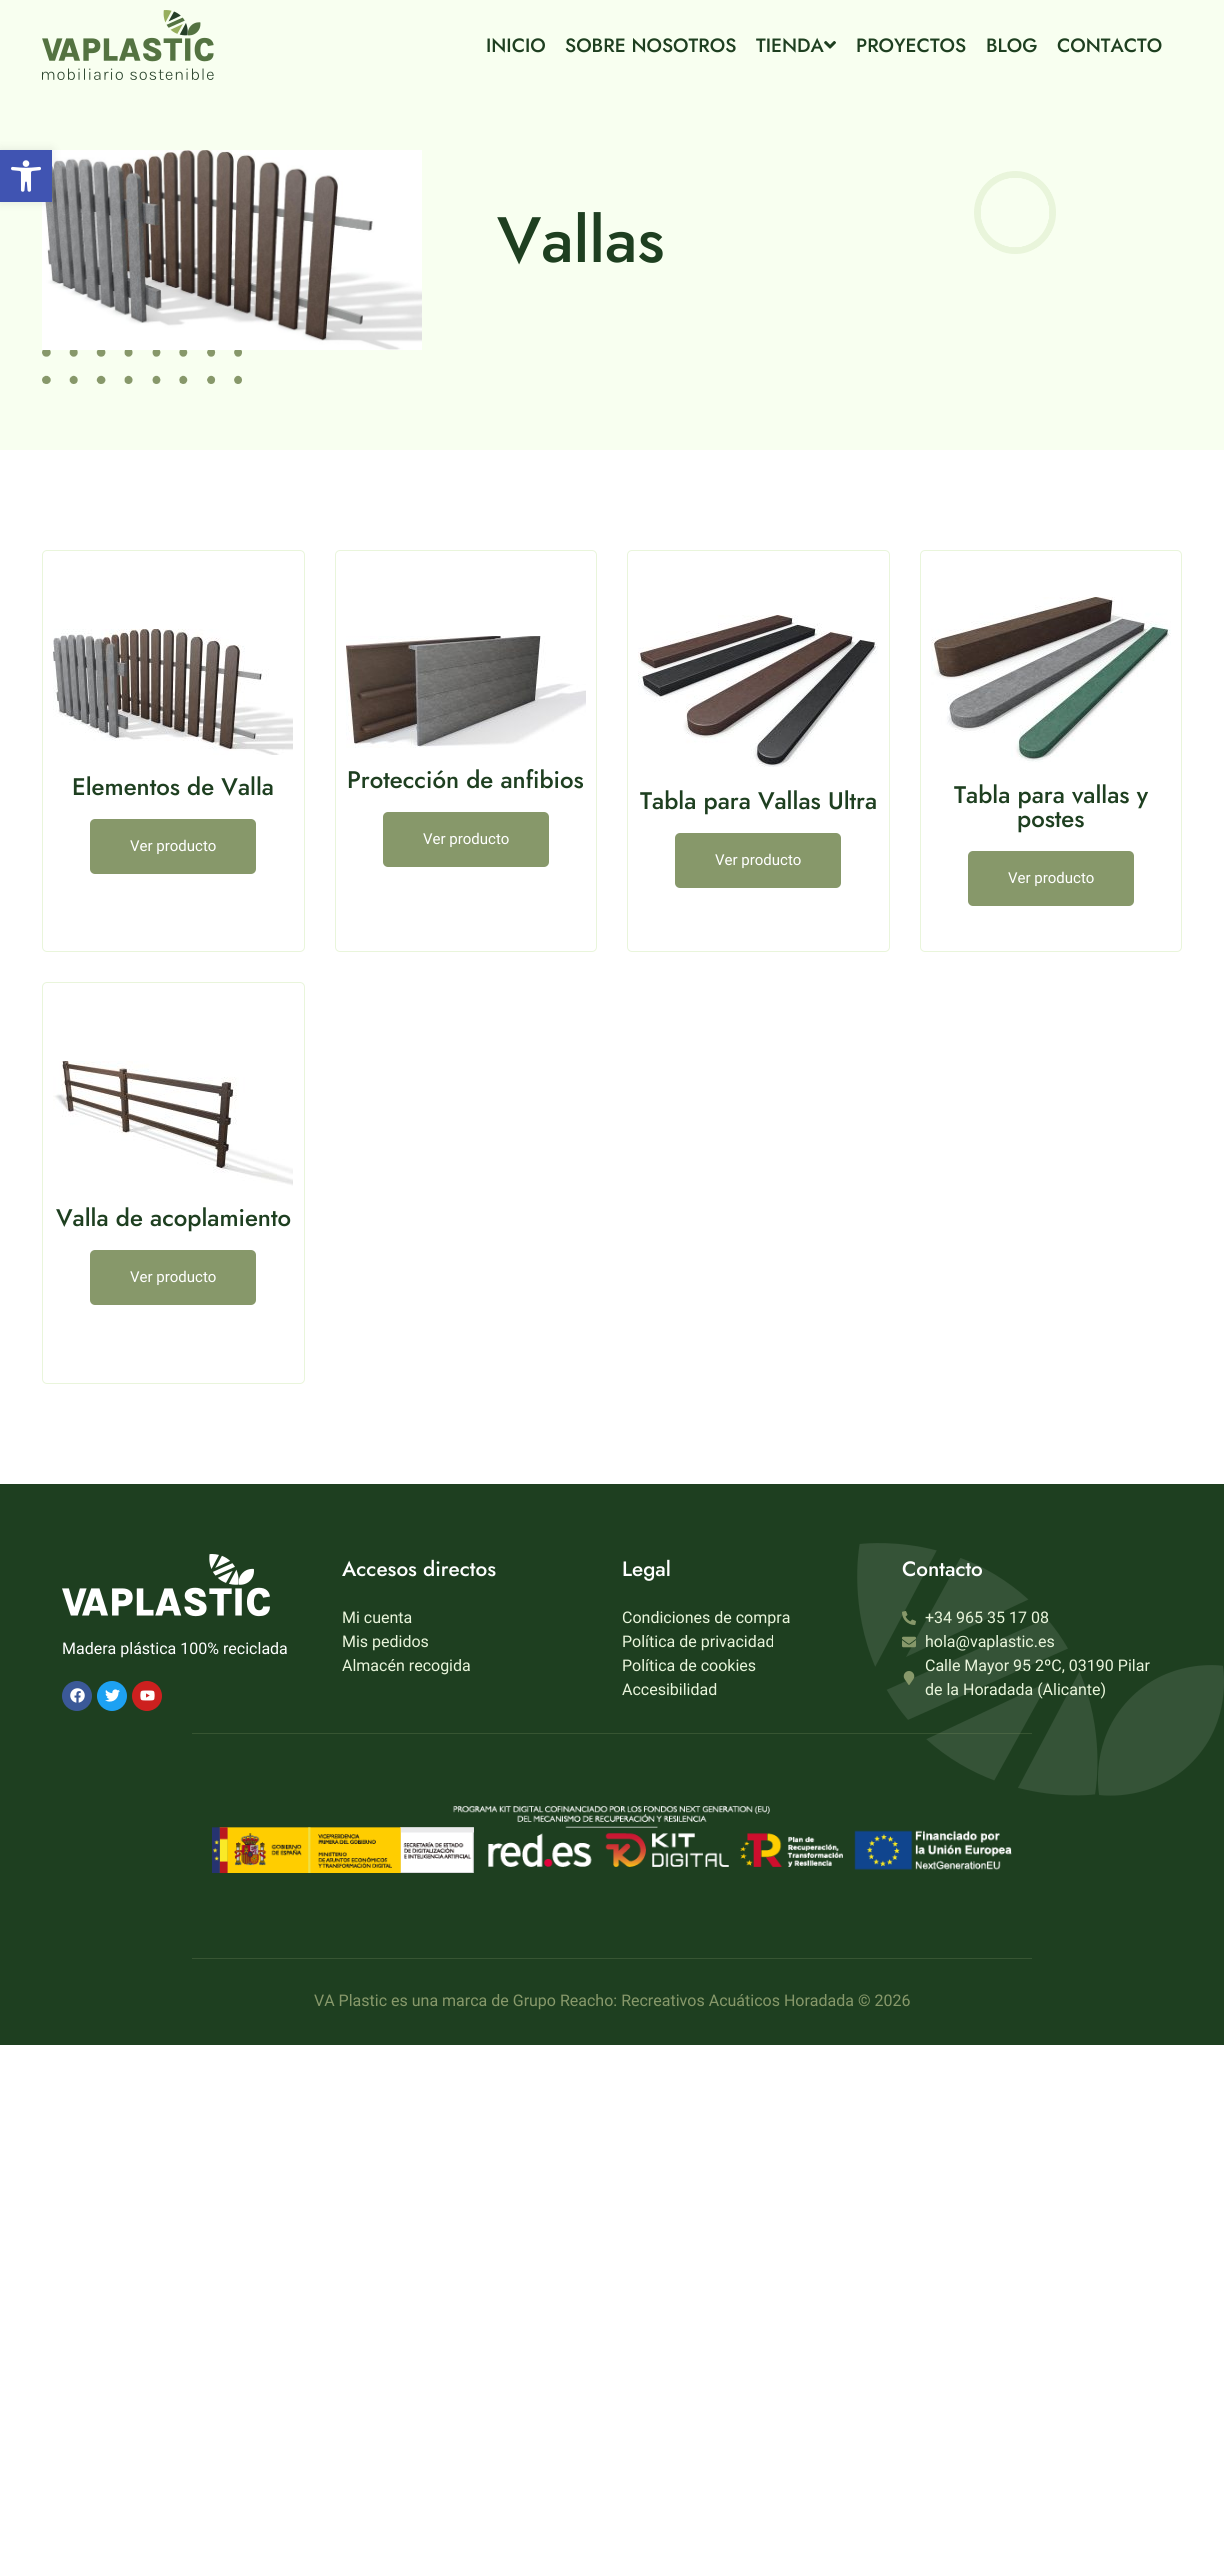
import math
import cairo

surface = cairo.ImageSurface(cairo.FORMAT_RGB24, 1224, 2552)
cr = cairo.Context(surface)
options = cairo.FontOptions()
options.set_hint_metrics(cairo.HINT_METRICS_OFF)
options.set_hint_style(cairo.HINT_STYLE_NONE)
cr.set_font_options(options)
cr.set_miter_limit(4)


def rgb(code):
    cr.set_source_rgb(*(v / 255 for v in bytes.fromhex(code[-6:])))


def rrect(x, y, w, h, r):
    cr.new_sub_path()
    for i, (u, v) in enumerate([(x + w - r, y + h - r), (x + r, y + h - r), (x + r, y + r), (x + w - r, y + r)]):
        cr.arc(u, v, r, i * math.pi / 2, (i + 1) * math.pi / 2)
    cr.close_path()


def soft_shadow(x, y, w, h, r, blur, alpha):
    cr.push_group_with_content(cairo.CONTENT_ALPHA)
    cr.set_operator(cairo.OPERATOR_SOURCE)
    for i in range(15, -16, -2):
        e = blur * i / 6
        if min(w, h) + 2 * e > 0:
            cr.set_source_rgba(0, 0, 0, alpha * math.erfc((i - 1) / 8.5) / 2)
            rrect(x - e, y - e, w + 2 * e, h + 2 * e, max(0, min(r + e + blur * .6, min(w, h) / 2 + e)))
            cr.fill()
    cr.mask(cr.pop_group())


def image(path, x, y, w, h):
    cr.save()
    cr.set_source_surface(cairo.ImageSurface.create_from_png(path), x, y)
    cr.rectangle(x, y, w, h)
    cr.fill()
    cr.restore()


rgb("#ffffff")
cr.paint()
rgb("#f8fff0")
cr.rectangle(0, 0, 1224, 450)
cr.fill()
image("img/1.png", 42, 10, 172, 70)
image("img/2.png", 824, 41, 12, 8)
image("img/4.png", 42, 150, 380, 200)
rgb("#000000")
soft_shadow(0, 150, 52, 52, 0, 5, 0.1)
rgb("#4054b2")
cr.rectangle(0, 150, 52, 52)
cr.fill()
image("img/3.png", 11, 160, 30, 32)
image("img/5.png", 974, 171, 82, 83)
image("img/6.png", 42, 350, 200, 34)
rrect(42.5, 550.5, 262, 401, 4.5)
rgb("#e9f5db")
cr.set_line_width(1)
cr.stroke()
image("img/7.png", 53, 629, 240, 126)
rgb("#87986a")
rrect(90, 819, 166, 55, 5)
cr.fill()
rrect(335.5, 550.5, 261, 401, 4.5)
rgb("#e9f5db")
cr.stroke()
image("img/8.png", 346, 636, 240, 112)
rgb("#87986a")
rrect(383, 812, 166, 55, 5)
cr.fill()
rrect(627.5, 550.5, 262, 401, 4.5)
rgb("#e9f5db")
cr.stroke()
image("img/9.png", 638, 615, 240, 152)
rgb("#87986a")
rrect(675, 833, 166, 55, 5)
cr.fill()
rrect(920.5, 550.5, 261, 401, 4.5)
rgb("#e9f5db")
cr.stroke()
image("img/10.png", 931, 597, 240, 166)
rgb("#87986a")
rrect(968, 851, 166, 55, 5)
cr.fill()
rrect(42.5, 982.5, 262, 401, 4.5)
rgb("#e9f5db")
cr.stroke()
image("img/11.png", 53, 1061, 240, 125)
rgb("#87986a")
rrect(90, 1250, 166, 55, 5)
cr.fill()
rgb("#1e3f20")
cr.rectangle(0, 1484, 1224, 561)
cr.fill()
image("img/12.png", 857, 1543, 367, 253)
image("img/13.png", 62, 1554, 208, 63)
rgb("#3b5998")
cr.arc(77, 1696, 15, 0, 2 * math.pi)
cr.fill()
image("img/14.png", 70, 1688, 15, 15)
rgb("#1da1f2")
cr.arc(112, 1696, 15, 0, 2 * math.pi)
cr.fill()
image("img/15.png", 105, 1689, 15, 13)
rgb("#cd201f")
cr.arc(147, 1696, 15, 0, 2 * math.pi)
cr.fill()
image("img/16.png", 140, 1690, 15, 11)
image("img/17.png", 902, 1611, 14, 14)
image("img/18.png", 902, 1636, 14, 12)
image("img/19.png", 903, 1671, 12, 14)
cr.set_source_rgba(0.529, 0.596, 0.416, 0.25)
cr.rectangle(192, 1733, 840, 1)
cr.fill()
image("img/20.png", 212, 1806, 800, 67)
rgb("#385533")
cr.rectangle(192, 1958, 840, 1)
cr.fill()
cr.select_font_face("Jost Medium")
cr.set_font_size(19.25)
rgb("#1e3f20")
for x, y, s in [
    (486, 52, "INICIO"),
    (565, 52, "SOBRE NOSOTROS"),
    (756, 52, "TIENDA"),
    (856, 52, "PROYECTOS"),
    (986, 52, "BLOG"),
    (1057, 52, "CONTACTO"),
]:
    cr.move_to(x, y)
    cr.show_text(s)
cr.set_font_size(64)
cr.move_to(497, 262)
cr.show_text("Vallas")
cr.set_font_size(24)
cr.move_to(72, 795)
cr.show_text("Elementos de Valla")
cr.select_font_face("Roboto")
cr.set_font_size(15)
rgb("#ffffff")
cr.move_to(130, 851)
cr.show_text("Ver producto")
cr.select_font_face("Jost Medium")
cr.set_font_size(24)
rgb("#1e3f20")
cr.move_to(347, 788)
cr.show_text("Protección de anfibios")
cr.select_font_face("Roboto")
cr.set_font_size(15)
rgb("#ffffff")
cr.move_to(423, 844)
cr.show_text("Ver producto")
cr.select_font_face("Jost Medium")
cr.set_font_size(24)
rgb("#1e3f20")
cr.move_to(640, 809)
cr.show_text("Tabla para Vallas Ultra")
cr.select_font_face("Roboto")
cr.set_font_size(15)
rgb("#ffffff")
cr.move_to(715, 865)
cr.show_text("Ver producto")
cr.select_font_face("Jost Medium")
cr.set_font_size(24)
rgb("#1e3f20")
cr.move_to(954, 803)
cr.show_text("Tabla para vallas y")
cr.move_to(1017, 827)
cr.show_text("postes")
cr.select_font_face("Roboto")
cr.set_font_size(15)
rgb("#ffffff")
cr.move_to(1008, 883)
cr.show_text("Ver producto")
cr.select_font_face("Jost Medium")
cr.set_font_size(24)
rgb("#1e3f20")
cr.move_to(56, 1226)
cr.show_text("Valla de acoplamiento")
cr.select_font_face("Roboto")
cr.set_font_size(15)
rgb("#ffffff")
cr.move_to(130, 1282)
cr.show_text("Ver producto")
cr.set_font_size(16)
cr.move_to(62, 1654)
cr.show_text("Madera plástica 100% reciclada")
cr.select_font_face("Jost Medium")
cr.set_font_size(20.75)
cr.move_to(342, 1576)
cr.show_text("Accesos directos")
cr.select_font_face("Roboto")
cr.set_font_size(16)
rgb("#e9f5db")
for x, y, s in [
    (342, 1623, "Mi cuenta"),
    (342, 1647, "Mis pedidos"),
    (342, 1671, "Almacén recogida"),
]:
    cr.move_to(x, y)
    cr.show_text(s)
cr.select_font_face("Jost Medium")
cr.set_font_size(20.75)
rgb("#ffffff")
cr.move_to(622, 1576)
cr.show_text("Legal")
cr.select_font_face("Roboto")
cr.set_font_size(16)
rgb("#e9f5db")
for x, y, s in [
    (622, 1623, "Condiciones de compra"),
    (622, 1647, "Política de privacidad"),
    (622, 1671, "Política de cookies"),
    (622, 1695, "Accesibilidad"),
]:
    cr.move_to(x, y)
    cr.show_text(s)
cr.select_font_face("Jost Medium")
cr.set_font_size(20.75)
rgb("#ffffff")
cr.move_to(902, 1576)
cr.show_text("Contacto")
cr.select_font_face("Roboto")
cr.set_font_size(16)
rgb("#e9f5db")
for x, y, s in [
    (925, 1623, "+34 965 35 17 08"),
    (925, 1647, "hola@vaplastic.es"),
    (925, 1671, "Calle Mayor 95 2ºC, 03190 Pilar"),
    (925, 1695, "de la Horadada (Alicante)"),
]:
    cr.move_to(x, y)
    cr.show_text(s)
rgb("#87986a")
cr.move_to(314, 2006)
cr.show_text("VA Plastic es una marca de Grupo Reacho: Recreativos Acuáticos Horadada © 2026")
surface.write_to_png("page.png")
